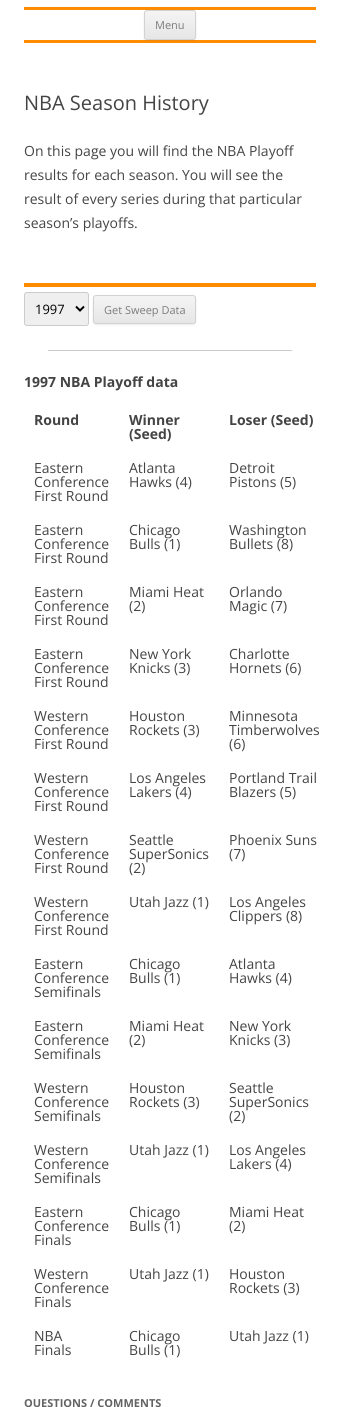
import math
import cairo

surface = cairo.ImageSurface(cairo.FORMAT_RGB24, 340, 1407)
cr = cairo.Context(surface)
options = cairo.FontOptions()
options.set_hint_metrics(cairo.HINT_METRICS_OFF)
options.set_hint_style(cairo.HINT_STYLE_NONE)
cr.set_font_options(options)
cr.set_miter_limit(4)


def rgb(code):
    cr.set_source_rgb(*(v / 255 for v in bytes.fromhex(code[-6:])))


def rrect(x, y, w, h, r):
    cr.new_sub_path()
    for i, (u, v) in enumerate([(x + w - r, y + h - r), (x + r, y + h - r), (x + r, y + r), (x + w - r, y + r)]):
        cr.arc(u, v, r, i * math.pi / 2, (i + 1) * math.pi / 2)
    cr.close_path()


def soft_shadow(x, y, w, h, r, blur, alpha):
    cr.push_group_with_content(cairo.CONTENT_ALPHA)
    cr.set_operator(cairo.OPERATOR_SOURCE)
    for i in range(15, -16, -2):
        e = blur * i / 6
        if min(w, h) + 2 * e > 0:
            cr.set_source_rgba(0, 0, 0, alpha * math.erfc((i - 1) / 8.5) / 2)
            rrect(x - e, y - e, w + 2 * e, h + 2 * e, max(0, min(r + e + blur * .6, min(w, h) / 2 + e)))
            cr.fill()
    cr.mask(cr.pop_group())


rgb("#ffffff")
cr.paint()
rgb("#ff8c00")
cr.rectangle(24, 7, 292, 3)
cr.fill()
cr.rectangle(24, 40, 292, 3)
cr.fill()
rgb("#404040")
soft_shadow(144, 11, 52, 30, 3, 1, 0.1)
cr.save()
rrect(144, 10, 52, 30, 3)
cr.clip()
gradient = cairo.LinearGradient(170, 11, 170, 39)
gradient.add_color_stop_rgba(0, 0.957, 0.957, 0.957, 1)
gradient.add_color_stop_rgba(1, 0.902, 0.902, 0.902, 1)
cr.set_source(gradient)
cr.rectangle(144, 11, 52, 28)
cr.fill()
cr.restore()
rrect(144.5, 10.5, 51, 29, 2.5)
rgb("#d2d2d2")
cr.set_line_width(1)
cr.stroke()
rgb("#ff8c00")
cr.rectangle(24, 283, 292, 4)
cr.fill()
rgb("#efefef")
rrect(24.5, 292.5, 64, 33, 2.5)
cr.fill_preserve()
rgb("#cccccc")
cr.stroke()
cr.new_path()
cr.move_to(76, 306.5)
cr.line_to(80, 310.5)
cr.line_to(84, 306.5)
rgb("#000000")
cr.set_line_width(2)
cr.stroke()
rgb("#404040")
soft_shadow(93, 296, 103, 29, 3, 1, 0.1)
cr.save()
rrect(93, 295, 103, 29, 3)
cr.clip()
gradient = cairo.LinearGradient(145, 296, 145, 323)
gradient.add_color_stop_rgba(0, 0.957, 0.957, 0.957, 1)
gradient.add_color_stop_rgba(1, 0.902, 0.902, 0.902, 1)
cr.set_source(gradient)
cr.rectangle(93, 296, 103, 27)
cr.fill()
cr.restore()
rrect(93.5, 295.5, 102, 28, 2.5)
rgb("#d2d2d2")
cr.set_line_width(1)
cr.stroke()
rgb("#cccccc")
cr.rectangle(48, 350, 244, 1)
cr.fill()
cr.select_font_face("Open Sans")
cr.set_font_size(11)
rgb("#7c7c7c")
cr.move_to(155, 29)
cr.show_text("Menu")
cr.set_font_size(20)
rgb("#444444")
cr.move_to(24, 110)
cr.show_text("NBA Season History")
cr.set_font_size(14)
for x, y, s in [
    (24, 156, "On this page you will find the NBA Playoff"),
    (24, 180, "results for each season. You will see the"),
    (24, 204, "result of every series during that particular"),
    (24, 228, "season’s playoffs."),
]:
    cr.move_to(x, y)
    cr.show_text(s)
cr.set_font_size(13)
rgb("#000000")
cr.move_to(35, 314)
cr.show_text("1997")
cr.set_font_size(11)
rgb("#7c7c7c")
cr.move_to(104, 314)
cr.show_text("Get Sweep Data")
cr.select_font_face("Open Sans", cairo.FONT_SLANT_NORMAL, cairo.FONT_WEIGHT_BOLD)
cr.set_font_size(14)
rgb("#444444")
for x, y, s in [
    (24, 387, "1997 NBA Playoff data"),
    (34, 425, "Round"),
    (129, 425, "Winner"),
    (129, 439, "(Seed)"),
    (229, 425, "Loser (Seed)"),
]:
    cr.move_to(x, y)
    cr.show_text(s)
cr.select_font_face("Open Sans")
for x, y, s in [
    (34, 473, "Eastern"),
    (34, 487, "Conference"),
    (34, 501, "First Round"),
    (129, 473, "Atlanta"),
    (129, 487, "Hawks (4)"),
    (229, 473, "Detroit"),
    (229, 487, "Pistons (5)"),
    (34, 535, "Eastern"),
    (34, 549, "Conference"),
    (34, 563, "First Round"),
    (129, 535, "Chicago"),
    (129, 549, "Bulls (1)"),
    (229, 535, "Washington"),
    (229, 549, "Bullets (8)"),
    (34, 597, "Eastern"),
    (34, 611, "Conference"),
    (34, 625, "First Round"),
    (129, 597, "Miami Heat"),
    (129, 611, "(2)"),
    (229, 597, "Orlando"),
    (229, 611, "Magic (7)"),
    (34, 659, "Eastern"),
    (34, 673, "Conference"),
    (34, 687, "First Round"),
    (129, 659, "New York"),
    (129, 673, "Knicks (3)"),
    (229, 659, "Charlotte"),
    (229, 673, "Hornets (6)"),
    (34, 721, "Western"),
    (34, 735, "Conference"),
    (34, 749, "First Round"),
    (129, 721, "Houston"),
    (129, 735, "Rockets (3)"),
    (229, 721, "Minnesota"),
    (229, 735, "Timberwolves"),
    (229, 749, "(6)"),
    (34, 783, "Western"),
    (34, 797, "Conference"),
    (34, 811, "First Round"),
    (129, 783, "Los Angeles"),
    (129, 797, "Lakers (4)"),
    (229, 783, "Portland Trail"),
    (229, 797, "Blazers (5)"),
    (34, 845, "Western"),
    (34, 859, "Conference"),
    (34, 873, "First Round"),
    (129, 845, "Seattle"),
    (129, 859, "SuperSonics"),
    (129, 873, "(2)"),
    (229, 845, "Phoenix Suns"),
    (229, 859, "(7)"),
    (34, 907, "Western"),
    (34, 921, "Conference"),
    (34, 935, "First Round"),
    (129, 907, "Utah Jazz (1)"),
    (229, 907, "Los Angeles"),
    (229, 921, "Clippers (8)"),
    (34, 969, "Eastern"),
    (34, 983, "Conference"),
    (34, 997, "Semifinals"),
    (129, 969, "Chicago"),
    (129, 983, "Bulls (1)"),
    (229, 969, "Atlanta"),
    (229, 983, "Hawks (4)"),
    (34, 1031, "Eastern"),
    (34, 1045, "Conference"),
    (34, 1059, "Semifinals"),
    (129, 1031, "Miami Heat"),
    (129, 1045, "(2)"),
    (229, 1031, "New York"),
    (229, 1045, "Knicks (3)"),
    (34, 1093, "Western"),
    (34, 1107, "Conference"),
    (34, 1121, "Semifinals"),
    (129, 1093, "Houston"),
    (129, 1107, "Rockets (3)"),
    (229, 1093, "Seattle"),
    (229, 1107, "SuperSonics"),
    (229, 1121, "(2)"),
    (34, 1155, "Western"),
    (34, 1169, "Conference"),
    (34, 1183, "Semifinals"),
    (129, 1155, "Utah Jazz (1)"),
    (229, 1155, "Los Angeles"),
    (229, 1169, "Lakers (4)"),
    (34, 1217, "Eastern"),
    (34, 1231, "Conference"),
    (34, 1245, "Finals"),
    (129, 1217, "Chicago"),
    (129, 1231, "Bulls (1)"),
    (229, 1217, "Miami Heat"),
    (229, 1231, "(2)"),
    (34, 1279, "Western"),
    (34, 1293, "Conference"),
    (34, 1307, "Finals"),
    (129, 1279, "Utah Jazz (1)"),
    (229, 1279, "Houston"),
    (229, 1293, "Rockets (3)"),
    (34, 1341, "NBA"),
    (34, 1355, "Finals"),
    (129, 1341, "Chicago"),
    (129, 1355, "Bulls (1)"),
    (229, 1341, "Utah Jazz (1)"),
]:
    cr.move_to(x, y)
    cr.show_text(s)
cr.select_font_face("Open Sans", cairo.FONT_SLANT_NORMAL, cairo.FONT_WEIGHT_BOLD)
cr.set_font_size(11)
rgb("#636363")
cr.move_to(24, 1407)
cr.show_text("QUESTIONS / COMMENTS")
surface.write_to_png("page.png")
